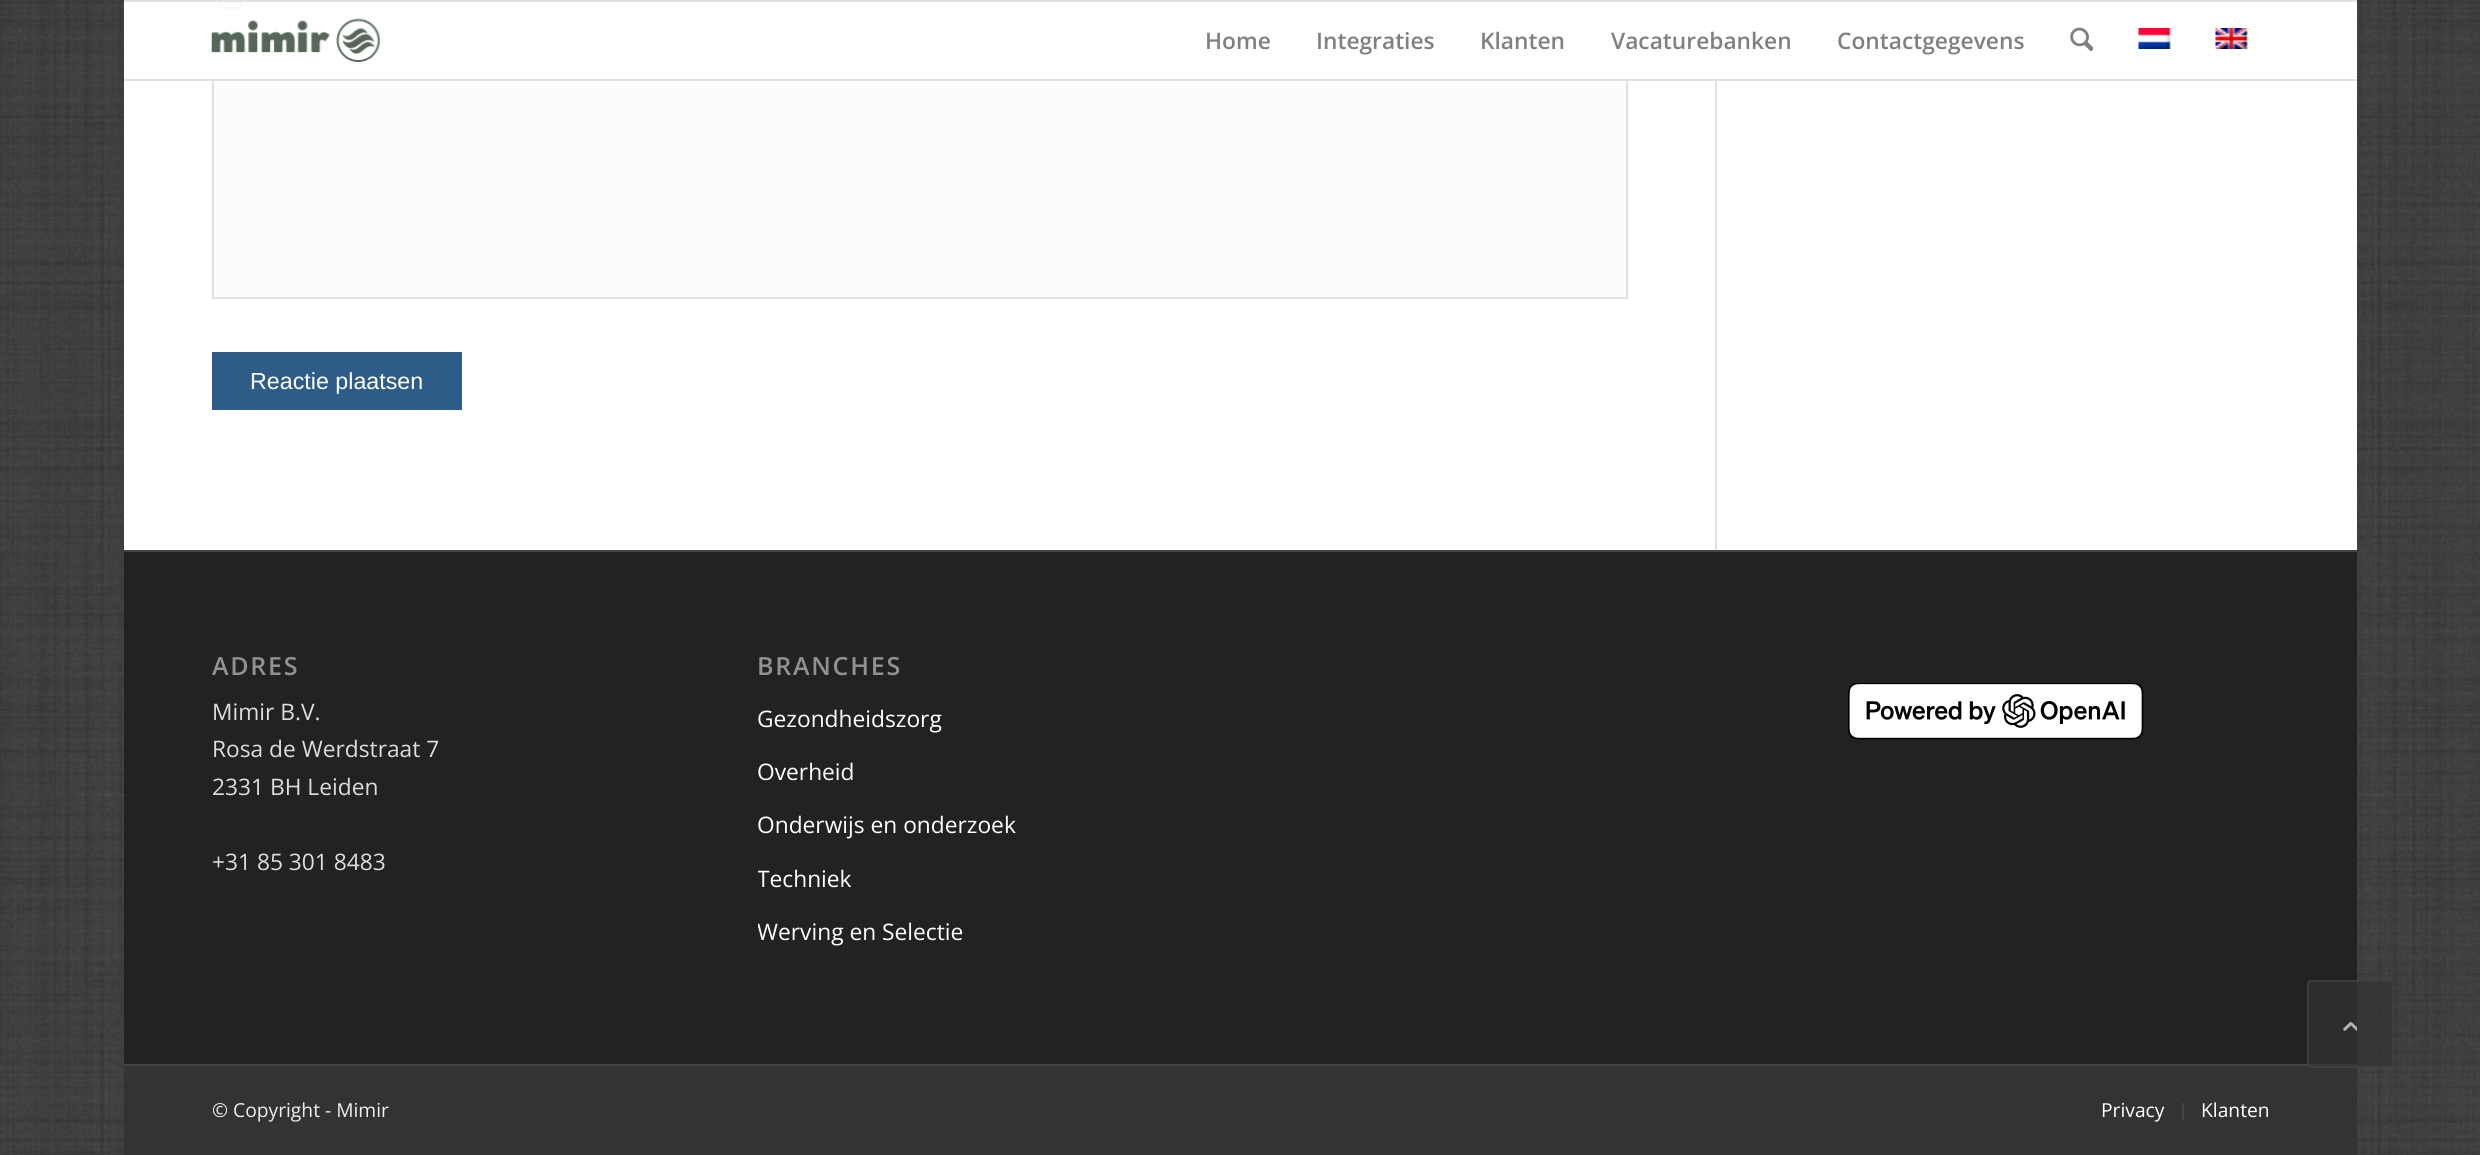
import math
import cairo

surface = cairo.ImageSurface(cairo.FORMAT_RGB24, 2480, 1155)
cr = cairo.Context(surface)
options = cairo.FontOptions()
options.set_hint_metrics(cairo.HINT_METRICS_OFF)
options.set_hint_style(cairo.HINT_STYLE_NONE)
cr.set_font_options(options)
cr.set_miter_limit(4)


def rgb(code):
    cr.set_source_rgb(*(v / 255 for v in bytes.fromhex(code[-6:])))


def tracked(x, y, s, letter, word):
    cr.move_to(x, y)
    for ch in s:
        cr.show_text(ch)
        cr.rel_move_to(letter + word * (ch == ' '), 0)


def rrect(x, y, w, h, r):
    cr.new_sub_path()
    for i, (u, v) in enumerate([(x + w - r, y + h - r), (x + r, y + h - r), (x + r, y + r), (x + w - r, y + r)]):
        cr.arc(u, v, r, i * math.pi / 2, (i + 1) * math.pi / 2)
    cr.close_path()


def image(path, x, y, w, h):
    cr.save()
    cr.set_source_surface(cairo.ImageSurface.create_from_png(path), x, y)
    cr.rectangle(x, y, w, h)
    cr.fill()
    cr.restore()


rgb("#333333")
cr.paint()
image("img/1.png", 0, 0, 2480, 1155)
rgb("#ffffff")
cr.rectangle(124, 2, 2233, 548)
cr.fill()
rgb("#e1e1e1")
cr.rectangle(1715, 0, 2, 550)
cr.fill()
rrect(220, -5, 21, 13, 3)
rgb("#767676")
cr.stroke()
rgb("#fcfcfc")
cr.rectangle(213, 38, 1414, 260)
cr.fill_preserve()
rgb("#e1e1e1")
cr.stroke()
cr.set_source_rgba(1, 1, 1, 0.95)
cr.rectangle(212, 2, 1505, 77)
cr.fill()
rgb("#e1e1e1")
cr.rectangle(124, 0, 2233, 2)
cr.rectangle(124, 79, 2233, 2)
cr.fill()
image("img/2.png", 211, 18, 169, 44)
image("img/3.png", 2070, 27, 23, 25)
image("img/4.png", 2138, 28, 33, 21)
image("img/5.png", 2215, 28, 33, 21)
for x, y, w, h, color in [
    (212, 352, 250, 58, "#2d5c88"),
    (124, 552, 2233, 512, "#222222"),
    (124, 550, 2233, 2, "#444444"),
]:
    rgb(color)
    cr.rectangle(x, y, w, h)
    cr.fill()
image("img/6.png", 1848, 683, 296, 57)
for x, y, w, h, color in [
    (124, 1066, 2233, 89, "#333333"),
    (124, 1064, 2233, 2, "#444444"),
    (2182, 1103, 2, 17, "#444444"),
]:
    rgb(color)
    cr.rectangle(x, y, w, h)
    cr.fill()
cr.set_source_rgba(0.2, 0.2, 0.2, 0.7)
rrect(2307, 980, 87, 88, 4)
cr.fill()
rrect(2308, 981, 85, 86, 3)
cr.set_source_rgba(0.267, 0.267, 0.267, 0.7)
cr.stroke()
image("img/7.png", 2343, 1022, 14, 9)
cr.select_font_face("Open Sans SemiBold")
cr.set_font_size(22.75)
rgb("#808080")
for x, y, s in [
    (1205, 49, "Home"),
    (1316, 49, "Integraties"),
    (1480, 49, "Klanten"),
    (1611, 49, "Vacaturebanken"),
    (1837, 49, "Contactgegevens"),
]:
    cr.move_to(x, y)
    cr.show_text(s)
cr.select_font_face("Liberation Sans")
cr.set_font_size(23.25)
rgb("#ffffff")
cr.move_to(250, 389)
cr.show_text("Reactie plaatsen")
cr.select_font_face("Open Sans SemiBold")
cr.set_font_size(25)
rgb("#919191")
tracked(212, 675, "ADRES", 1.75, 0)
cr.select_font_face("Open Sans")
cr.set_font_size(22.75)
rgb("#dddddd")
for x, y, s in [
    (212, 720, "Mimir B.V."),
    (212, 757, "Rosa de Werdstraat 7"),
    (212, 795, "2331 BH Leiden"),
    (212, 870, "+31 85 301 8483"),
]:
    cr.move_to(x, y)
    cr.show_text(s)
cr.select_font_face("Open Sans SemiBold")
cr.set_font_size(25)
rgb("#919191")
tracked(757, 675, "BRANCHES", 1.75, 0)
cr.select_font_face("Open Sans")
cr.set_font_size(22.75)
rgb("#ffffff")
for x, y, s in [
    (757, 727, "Gezondheidszorg"),
    (757, 780, "Overheid"),
    (757, 833, "Onderwijs en onderzoek"),
]:
    cr.move_to(x, y)
    cr.show_text(s)
cr.save()
cr.rectangle(758, 630, 422, 331)
cr.clip()
cr.move_to(757, 887)
cr.show_text("Techniek")
cr.move_to(757, 940)
cr.show_text("Werving en Selectie")
cr.restore()
cr.set_font_size(19.25)
rgb("#eeeeee")
cr.move_to(212, 1117)
cr.show_text("© Copyright - Mimir")
rgb("#ffffff")
cr.move_to(2101, 1117)
cr.show_text("Privacy")
cr.move_to(2201, 1117)
cr.show_text("Klanten")
surface.write_to_png("page.png")
